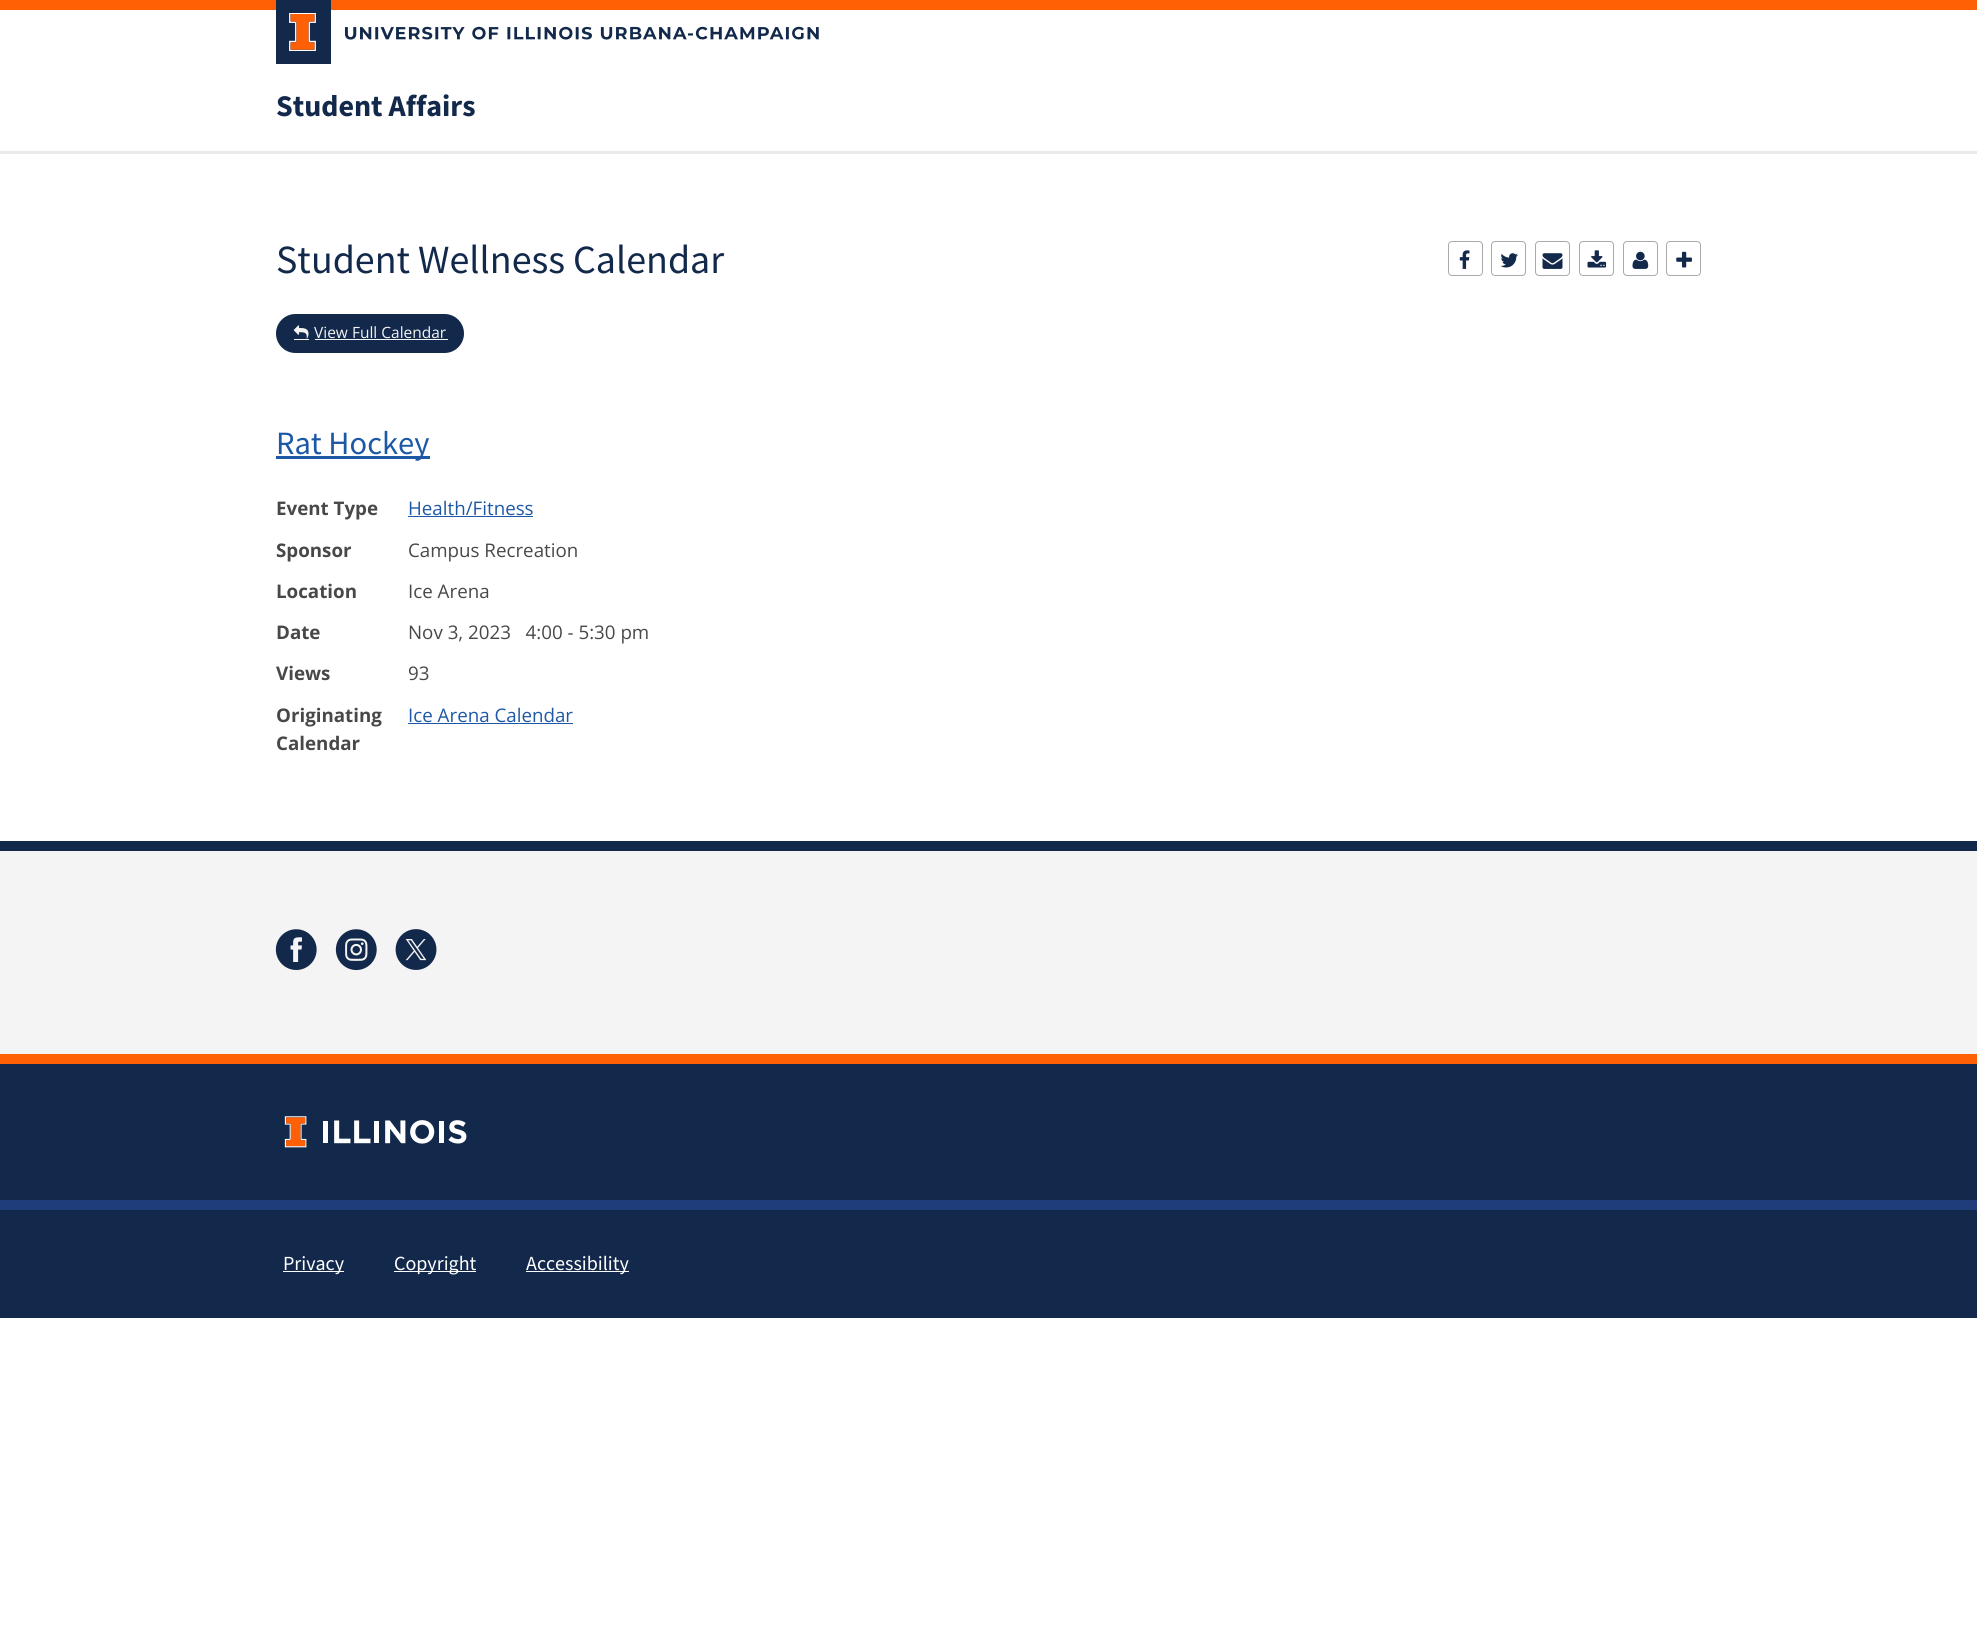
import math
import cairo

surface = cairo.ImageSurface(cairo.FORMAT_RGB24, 1977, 1648)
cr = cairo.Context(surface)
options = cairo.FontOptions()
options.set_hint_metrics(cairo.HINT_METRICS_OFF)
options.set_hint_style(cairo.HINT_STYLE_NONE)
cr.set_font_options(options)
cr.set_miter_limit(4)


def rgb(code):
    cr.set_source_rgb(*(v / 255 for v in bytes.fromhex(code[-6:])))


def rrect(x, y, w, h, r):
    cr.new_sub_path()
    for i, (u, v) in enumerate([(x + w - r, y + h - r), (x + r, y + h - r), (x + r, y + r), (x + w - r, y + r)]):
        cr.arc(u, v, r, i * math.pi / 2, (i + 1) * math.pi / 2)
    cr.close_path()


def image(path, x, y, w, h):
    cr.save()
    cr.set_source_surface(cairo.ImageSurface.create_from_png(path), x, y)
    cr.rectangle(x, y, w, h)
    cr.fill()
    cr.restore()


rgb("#ffffff")
cr.paint()
for x, y, w, h, color in [
    (0, 151, 1977, 3, "#e8e9eb"),
    (0, 0, 1977, 10, "#ff5f05"),
    (276, 0, 55, 64, "#13294b"),
]:
    rgb(color)
    cr.rectangle(x, y, w, h)
    cr.fill()
image("img/1.png", 289, 13, 27, 38)
image("img/2.png", 345, 26, 474, 14)
rrect(1448.5, 241.5, 34, 34, 3.5)
rgb("#aaaaaa")
cr.set_line_width(1)
cr.stroke()
image("img/3.png", 1459, 250, 11, 19)
rrect(1491.5, 241.5, 34, 34, 3.5)
cr.stroke()
image("img/4.png", 1500, 253, 18, 15)
rrect(1535.5, 241.5, 34, 34, 3.5)
cr.stroke()
image("img/5.png", 1542, 253, 21, 16)
rrect(1579.5, 241.5, 34, 34, 3.5)
cr.stroke()
image("img/6.png", 1587, 250, 20, 18)
rrect(1623.5, 241.5, 34, 34, 3.5)
cr.stroke()
image("img/7.png", 1632, 251, 17, 18)
rrect(1666.5, 241.5, 34, 34, 3.5)
cr.stroke()
image("img/8.png", 1676, 251, 16, 17)
rgb("#13294b")
rrect(276, 314, 188, 39, 19.5)
cr.fill()
image("img/9.png", 293, 325, 16, 14)
for x, y, w, h, color in [
    (315, 339, 133, 1, "#f4f4f2"),
    (294, 339, 15, 1, "#f4f4f2"),
    (276, 456, 154, 3, "#1d58a7"),
    (408, 516, 125, 1, "#1d58a7"),
    (408, 723, 165, 1, "#1d58a7"),
    (0, 851, 1977, 203, "#f4f4f4"),
    (0, 841, 1977, 10, "#13294b"),
]:
    rgb(color)
    cr.rectangle(x, y, w, h)
    cr.fill()
image("img/10.png", 275, 929, 42, 41)
image("img/11.png", 335, 929, 42, 42)
image("img/12.png", 395, 929, 42, 41)
cr.rectangle(0, 1064, 1977, 136)
cr.fill()
rgb("#ff5f05")
cr.rectangle(0, 1054, 1977, 10)
cr.fill()
image("img/13.png", 284, 1116, 183, 32)
for x, y, w, h, color in [
    (0, 1210, 1977, 108, "#13294b"),
    (0, 1200, 1977, 10, "#1f3d7b"),
    (283, 1271, 61, 1, "#ffffff"),
    (394, 1271, 82, 1, "#ffffff"),
    (526, 1271, 103, 1, "#ffffff"),
]:
    rgb(color)
    cr.rectangle(x, y, w, h)
    cr.fill()
cr.select_font_face("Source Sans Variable", cairo.FONT_SLANT_NORMAL, cairo.FONT_WEIGHT_BOLD)
cr.set_font_size(30)
rgb("#13294b")
cr.move_to(276, 116)
cr.show_text("Student Affairs")
cr.select_font_face("Source Sans Pro")
cr.set_font_size(40)
cr.move_to(276, 273)
cr.show_text("Student Wellness Calendar")
cr.select_font_face("Open Sans")
cr.set_font_size(15.5)
rgb("#f4f4f2")
cr.move_to(314, 338)
cr.show_text("View Full Calendar")
cr.select_font_face("Source Sans Pro")
cr.set_font_size(32.5)
rgb("#1d58a7")
cr.move_to(276, 454)
cr.show_text("Rat Hockey")
cr.select_font_face("Open Sans", cairo.FONT_SLANT_NORMAL, cairo.FONT_WEIGHT_BOLD)
cr.set_font_size(18.75)
rgb("#48484a")
cr.move_to(276, 515)
cr.show_text("Event Type")
cr.select_font_face("Open Sans")
rgb("#1d58a7")
cr.move_to(408, 515)
cr.show_text("Health/Fitness")
cr.select_font_face("Open Sans", cairo.FONT_SLANT_NORMAL, cairo.FONT_WEIGHT_BOLD)
rgb("#48484a")
cr.move_to(276, 557)
cr.show_text("Sponsor")
cr.select_font_face("Open Sans")
cr.move_to(408, 557)
cr.show_text("Campus Recreation")
cr.select_font_face("Open Sans", cairo.FONT_SLANT_NORMAL, cairo.FONT_WEIGHT_BOLD)
cr.move_to(276, 598)
cr.show_text("Location")
cr.select_font_face("Open Sans")
cr.move_to(408, 598)
cr.show_text("Ice Arena")
cr.select_font_face("Open Sans", cairo.FONT_SLANT_NORMAL, cairo.FONT_WEIGHT_BOLD)
cr.move_to(276, 639)
cr.show_text("Date")
cr.select_font_face("Open Sans")
cr.move_to(408, 639)
cr.show_text("Nov 3, 2023   4:00 - 5:30 pm")
cr.select_font_face("Open Sans", cairo.FONT_SLANT_NORMAL, cairo.FONT_WEIGHT_BOLD)
cr.move_to(276, 680)
cr.show_text("Views")
cr.select_font_face("Open Sans")
cr.move_to(408, 680)
cr.show_text("93")
cr.select_font_face("Open Sans", cairo.FONT_SLANT_NORMAL, cairo.FONT_WEIGHT_BOLD)
cr.move_to(276, 722)
cr.show_text("Originating")
cr.move_to(276, 750)
cr.show_text("Calendar")
cr.select_font_face("Open Sans")
rgb("#1d58a7")
cr.move_to(408, 722)
cr.show_text("Ice Arena Calendar")
cr.select_font_face("Source Sans Variable")
cr.set_font_size(20)
rgb("#ffffff")
for x, y, s in [
    (283, 1270, "Privacy"),
    (394, 1270, "Copyright"),
    (526, 1270, "Accessibility"),
]:
    cr.move_to(x, y)
    cr.show_text(s)
surface.write_to_png("page.png")
